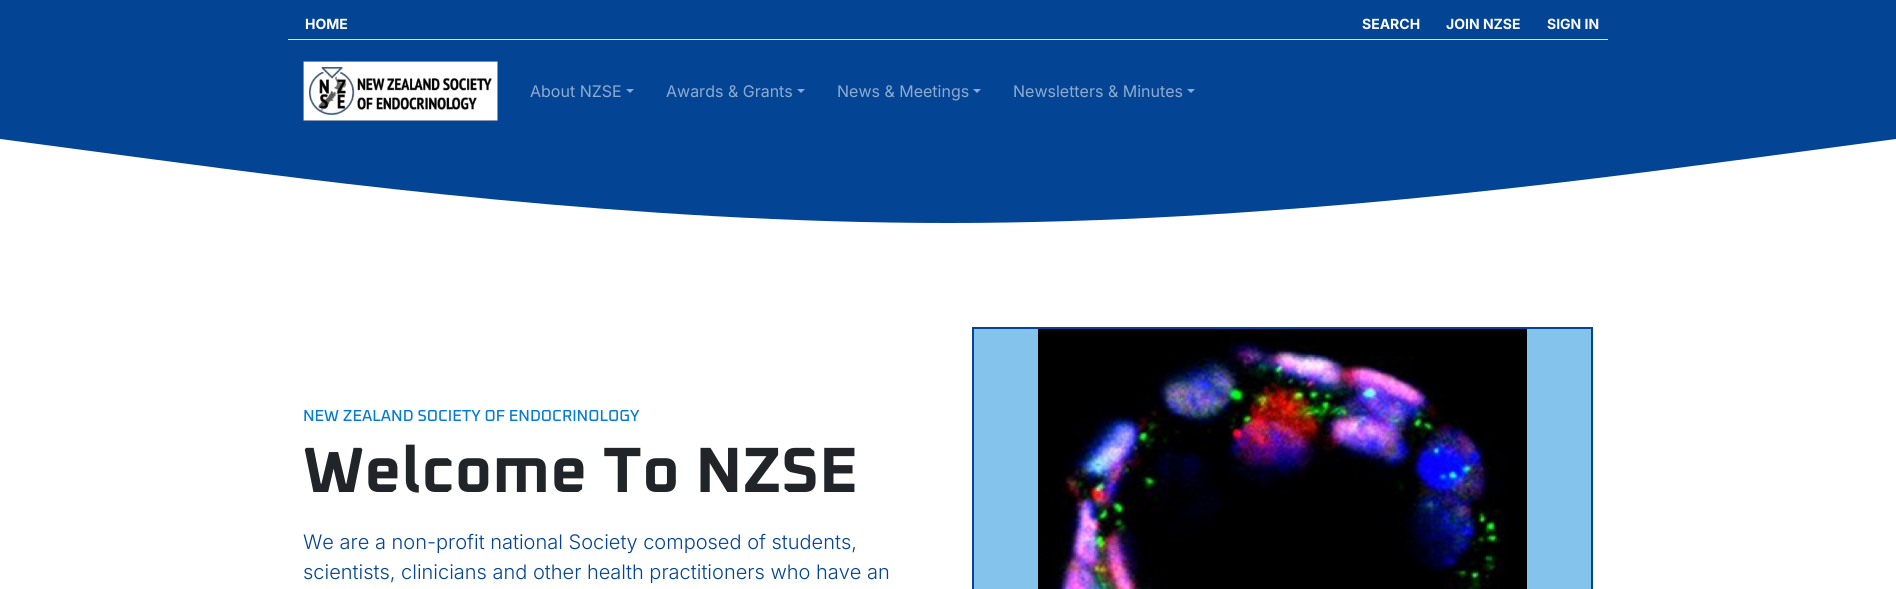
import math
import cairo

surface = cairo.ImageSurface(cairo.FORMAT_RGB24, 1896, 589)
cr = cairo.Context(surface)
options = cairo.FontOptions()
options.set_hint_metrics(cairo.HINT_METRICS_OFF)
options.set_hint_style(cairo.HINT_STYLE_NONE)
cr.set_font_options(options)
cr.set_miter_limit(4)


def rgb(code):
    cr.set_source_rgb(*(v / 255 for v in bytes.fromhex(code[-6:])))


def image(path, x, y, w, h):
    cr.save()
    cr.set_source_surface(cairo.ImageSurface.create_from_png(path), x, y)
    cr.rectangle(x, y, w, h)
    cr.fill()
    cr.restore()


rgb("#ffffff")
cr.paint()
rgb("#044494")
cr.rectangle(0, 0, 1896, 223)
cr.fill()
rgb("#dee2e6")
cr.rectangle(288, 39, 1320, 1)
cr.fill()
image("img/1.png", 303, 61, 195, 60)
rgb("#8eabcf")
cr.new_path()
cr.move_to(626, 89)
cr.line_to(634, 89)
cr.line_to(630, 93)
cr.close_path()
cr.fill()
cr.new_path()
cr.move_to(797, 89)
cr.line_to(805, 89)
cr.line_to(801, 93)
cr.close_path()
cr.fill()
cr.new_path()
cr.move_to(973, 89)
cr.line_to(981, 89)
cr.line_to(977, 93)
cr.close_path()
cr.fill()
cr.new_path()
cr.move_to(1187, 89)
cr.line_to(1195, 89)
cr.line_to(1191, 93)
cr.close_path()
cr.fill()
cr.save()
cr.rectangle(0, 126, 1896, 105)
cr.clip()
rgb("#ffffff")
cr.new_path()
cr.move_to(0, 139)
cr.line_to(158, 160)
cr.curve_to(316, 181, 632, 223, 948, 223)
cr.curve_to(1264, 223, 1580, 181, 1738, 160)
cr.line_to(1896, 139)
cr.line_to(1896, 350)
cr.line_to(0, 350)
cr.close_path()
cr.fill()
cr.restore()
rgb("#84c4ec")
cr.rectangle(973, 328, 619, 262)
cr.fill_preserve()
rgb("#044494")
cr.stroke()
image("img/2.png", 1038, 329, 489, 260)
cr.select_font_face("Inter", cairo.FONT_SLANT_NORMAL, cairo.FONT_WEIGHT_BOLD)
cr.set_font_size(14)
rgb("#ffffff")
cr.move_to(305, 29)
cr.show_text("HOME")
cr.move_to(1362, 29)
cr.show_text("SEARCH")
rgb("#f8f9fa")
cr.move_to(1446, 29)
cr.show_text("JOIN NZSE")
cr.move_to(1547, 29)
cr.show_text("SIGN IN")
cr.select_font_face("Inter")
cr.set_font_size(16)
rgb("#8eabcf")
for x, y, s in [
    (530, 97, "About NZSE"),
    (666, 97, "Awards & Grants"),
    (837, 97, "News & Meetings"),
    (1013, 97, "Newsletters & Minutes"),
]:
    cr.move_to(x, y)
    cr.show_text(s)
cr.select_font_face("Oxanium Medium")
rgb("#047cd4")
cr.move_to(303, 421)
cr.show_text("NEW ZEALAND SOCIETY OF ENDOCRINOLOGY")
cr.select_font_face("Oxanium", cairo.FONT_SLANT_NORMAL, cairo.FONT_WEIGHT_BOLD)
cr.set_font_size(64)
rgb("#212529")
cr.move_to(303, 492)
cr.show_text("Welcome To NZSE")
cr.select_font_face("Inter Light")
cr.set_font_size(20)
rgb("#044494")
cr.move_to(303, 549)
cr.show_text("We are a non-profit national Society composed of students,")
cr.move_to(303, 579)
cr.show_text("scientists, clinicians and other health practitioners who have an")
surface.write_to_png("page.png")
